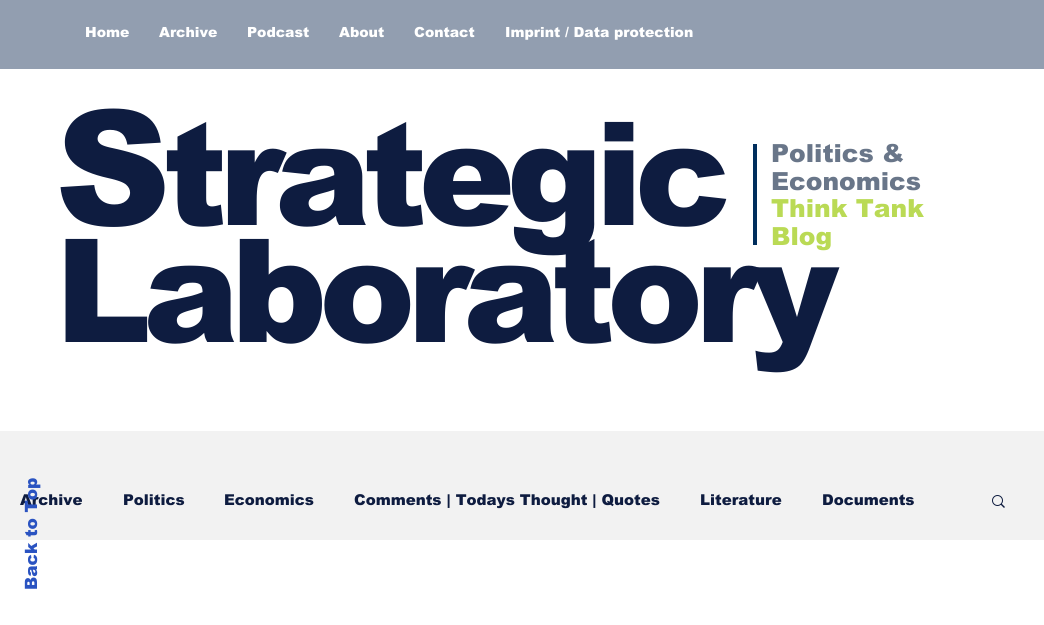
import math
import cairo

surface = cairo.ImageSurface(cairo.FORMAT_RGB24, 1044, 625)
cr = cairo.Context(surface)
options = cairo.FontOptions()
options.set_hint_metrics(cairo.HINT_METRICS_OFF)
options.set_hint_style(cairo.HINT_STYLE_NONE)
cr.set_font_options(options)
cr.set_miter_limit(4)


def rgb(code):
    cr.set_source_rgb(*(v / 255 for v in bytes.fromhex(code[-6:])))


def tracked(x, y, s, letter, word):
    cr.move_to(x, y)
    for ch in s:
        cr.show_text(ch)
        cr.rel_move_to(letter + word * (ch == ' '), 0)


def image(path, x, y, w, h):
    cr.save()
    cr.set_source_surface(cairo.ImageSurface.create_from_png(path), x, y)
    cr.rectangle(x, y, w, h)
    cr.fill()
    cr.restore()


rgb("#f2f2f2")
cr.paint()
for x, y, w, h, color in [
    (0, 0, 1044, 69, "#929eb0"),
    (0, 69, 1044, 362, "#ffffff"),
    (0, 540, 1044, 85, "#ffffff"),
]:
    rgb(color)
    cr.rectangle(x, y, w, h)
    cr.fill()
image("img/1.png", 992, 495, 13, 13)
cr.select_font_face("arial Black")
cr.set_font_size(14)
for x, y, s in [
    (85, 37, "Home"),
    (159, 37, "Archive"),
    (247, 37, "Podcast"),
    (339, 37, "About"),
    (414, 37, "Contact"),
    (505, 37, "Imprint / Data protection"),
]:
    cr.move_to(x, y)
    cr.show_text(s)
cr.set_font_size(160)
rgb("#0e1c40")
tracked(55, 225, "S", -8, 0)
cr.set_font_size(144)
tracked(163, 225, "trategic", -8, 0)
tracked(55, 342, "Laboratory", -8, 0)
cr.set_font_size(25)
rgb("#697689")
cr.move_to(771, 162)
cr.show_text("Politics &")
cr.move_to(771, 190)
cr.show_text("Economics")
rgb("#bada55")
cr.move_to(771, 217)
cr.show_text("Think Tank")
cr.move_to(771, 245)
cr.show_text("Blog")
rgb("#002e5d")
cr.rectangle(753, 144, 4, 101)
cr.fill()
cr.set_font_size(15)
rgb("#0e1c40")
cr.move_to(20, 505)
cr.show_text("Archive")
cr.set_font_size(17)
rgb("#2a53c1")
cr.save()
cr.translate(37, 590)
cr.rotate(-90 * math.pi / 180)
cr.move_to(0, 0)
cr.show_text("Back to Top")
cr.restore()
cr.set_font_size(15)
rgb("#0e1c40")
for x, y, s in [
    (123, 505, "Politics"),
    (224, 505, "Economics"),
    (354, 505, "Comments | Todays Thought | Quotes"),
    (700, 505, "Literature"),
    (822, 505, "Documents"),
]:
    cr.move_to(x, y)
    cr.show_text(s)
surface.write_to_png("page.png")
